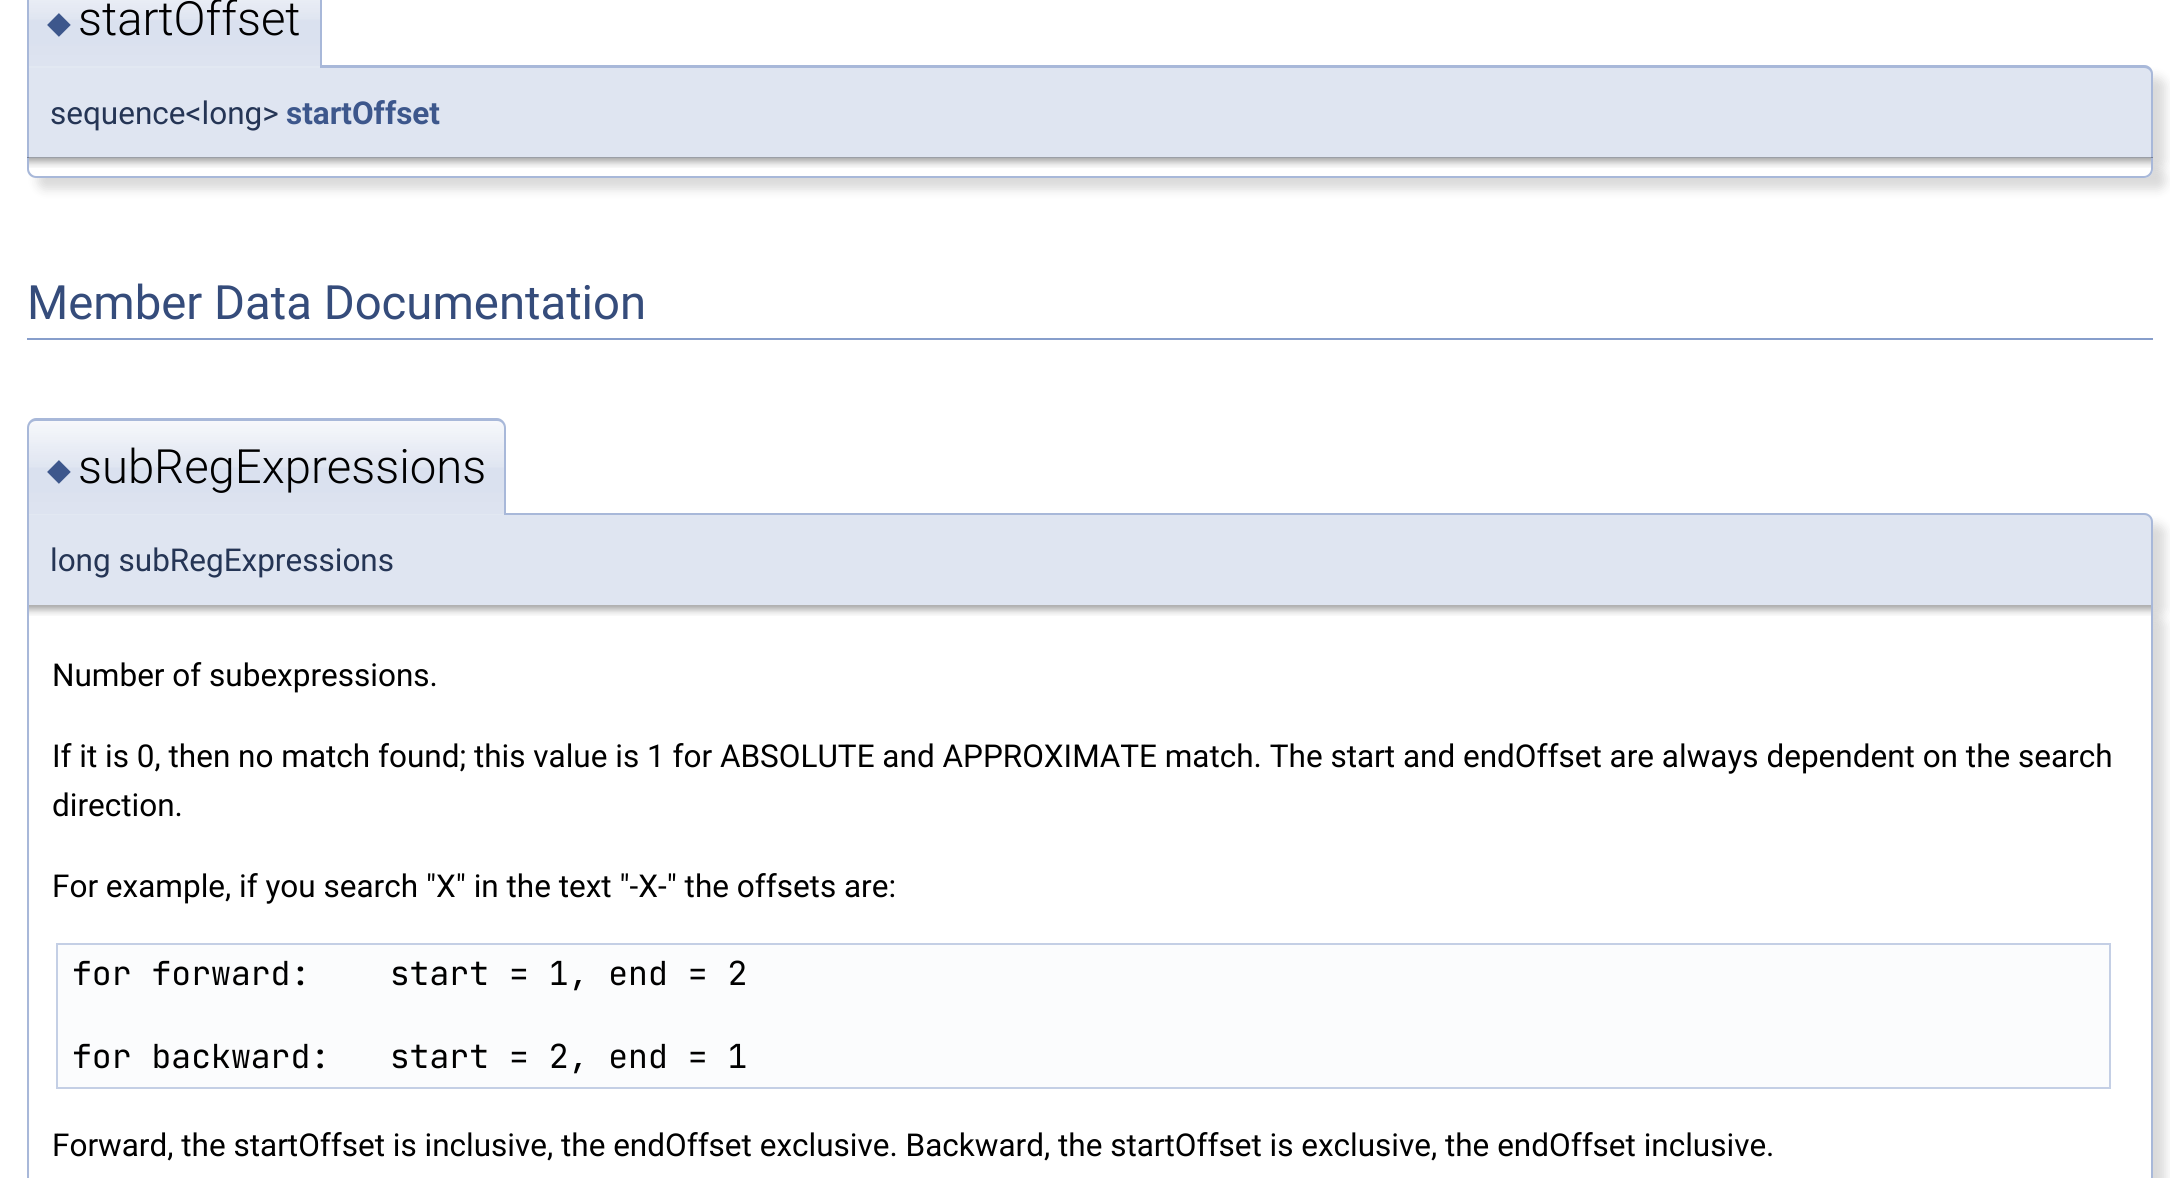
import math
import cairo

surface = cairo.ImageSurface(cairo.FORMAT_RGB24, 2170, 1178)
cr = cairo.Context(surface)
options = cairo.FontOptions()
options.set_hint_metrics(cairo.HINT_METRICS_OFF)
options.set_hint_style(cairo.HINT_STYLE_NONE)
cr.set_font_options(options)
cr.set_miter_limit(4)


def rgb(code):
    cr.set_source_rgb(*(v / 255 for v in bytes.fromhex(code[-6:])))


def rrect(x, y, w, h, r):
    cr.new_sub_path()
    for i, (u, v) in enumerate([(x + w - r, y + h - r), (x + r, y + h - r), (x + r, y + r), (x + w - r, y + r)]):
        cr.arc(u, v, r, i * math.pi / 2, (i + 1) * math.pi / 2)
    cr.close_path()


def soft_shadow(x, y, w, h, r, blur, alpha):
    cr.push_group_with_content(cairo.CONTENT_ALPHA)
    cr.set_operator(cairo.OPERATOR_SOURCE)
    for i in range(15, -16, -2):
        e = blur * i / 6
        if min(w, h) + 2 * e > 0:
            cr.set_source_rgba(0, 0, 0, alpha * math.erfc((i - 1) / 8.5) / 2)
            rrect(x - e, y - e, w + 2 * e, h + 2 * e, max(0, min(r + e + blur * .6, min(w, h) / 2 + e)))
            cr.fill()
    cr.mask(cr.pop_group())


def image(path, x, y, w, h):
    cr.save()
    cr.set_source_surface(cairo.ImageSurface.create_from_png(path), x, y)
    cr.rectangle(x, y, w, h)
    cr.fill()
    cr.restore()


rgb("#ffffff")
cr.paint()
rgb("#000000")
soft_shadow(38, 77, 2127, 92, 9, 5.5, 0.15)
rgb("#dfe5f1")
cr.new_path()
cr.move_to(27, 65)
cr.line_to(2144, 65)
cr.curve_to(2149, 65, 2153, 69, 2153, 74)
cr.line_to(2153, 158)
cr.line_to(27, 158)
cr.close_path()
cr.fill()
rgb("#a8b8d9")
cr.set_fill_rule(cairo.FILL_RULE_EVEN_ODD)
cr.new_path()
cr.move_to(27, 65)
cr.line_to(2144, 65)
cr.curve_to(2149, 65, 2153, 69, 2153, 74)
cr.line_to(2153, 158)
cr.line_to(27, 158)
cr.close_path()
cr.move_to(29, 68)
cr.line_to(2144, 68)
cr.curve_to(2148, 68, 2151, 71, 2151, 74)
cr.line_to(2151, 158)
cr.line_to(29, 158)
cr.close_path()
cr.fill()
rgb("#e2e8f2")
cr.rectangle(29, 66, 291, 2)
cr.fill()
image("img/1.png", 29, 0, 291, 66)
rgb("#a8b8d9")
cr.new_path()
cr.move_to(36, -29)
cr.line_to(313, -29)
cr.curve_to(318, -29, 322, -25, 322, -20)
cr.line_to(322, 68)
cr.line_to(27, 68)
cr.line_to(27, -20)
cr.curve_to(27, -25, 31, -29, 36, -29)
cr.close_path()
cr.move_to(36, -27)
cr.line_to(313, -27)
cr.curve_to(316, -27, 320, -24, 320, -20)
cr.line_to(320, 68)
cr.line_to(29, 68)
cr.line_to(29, -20)
cr.curve_to(29, -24, 32, -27, 36, -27)
cr.close_path()
cr.fill()
rgb("#000000")
soft_shadow(38, 169, 2127, 20, 9, 5.5, 0.15)
rgb("#ffffff")
cr.new_path()
cr.move_to(27, 158)
cr.line_to(2153, 158)
cr.line_to(2153, 169)
cr.curve_to(2153, 174, 2149, 178, 2144, 178)
cr.line_to(36, 178)
cr.curve_to(31, 178, 27, 174, 27, 169)
cr.close_path()
cr.fill()
image("img/2.png", 27, 157, 2126, 11)
rgb("#a8b8d9")
cr.new_path()
cr.move_to(27, 158)
cr.line_to(2153, 158)
cr.line_to(2153, 169)
cr.curve_to(2153, 174, 2149, 178, 2144, 178)
cr.line_to(36, 178)
cr.curve_to(31, 178, 27, 174, 27, 169)
cr.close_path()
cr.move_to(29, 158)
cr.line_to(2151, 158)
cr.line_to(2151, 169)
cr.curve_to(2151, 172, 2148, 176, 2144, 176)
cr.line_to(36, 176)
cr.curve_to(32, 176, 29, 172, 29, 169)
cr.close_path()
cr.fill()
rgb("#879ecb")
cr.rectangle(27, 338, 2126, 2)
cr.fill()
rgb("#000000")
soft_shadow(38, 524, 2127, 93, 9, 5.5, 0.15)
rgb("#dfe5f1")
cr.new_path()
cr.move_to(27, 513)
cr.line_to(2144, 513)
cr.curve_to(2149, 513, 2153, 517, 2153, 522)
cr.line_to(2153, 605)
cr.line_to(27, 605)
cr.close_path()
cr.fill()
rgb("#a8b8d9")
cr.new_path()
cr.move_to(27, 513)
cr.line_to(2144, 513)
cr.curve_to(2149, 513, 2153, 517, 2153, 522)
cr.line_to(2153, 605)
cr.line_to(27, 605)
cr.close_path()
cr.move_to(29, 515)
cr.line_to(2144, 515)
cr.curve_to(2148, 515, 2151, 518, 2151, 522)
cr.line_to(2151, 605)
cr.line_to(29, 605)
cr.close_path()
cr.fill()
rgb("#e2e8f2")
cr.new_path()
cr.move_to(36, 419)
cr.line_to(497, 419)
cr.curve_to(502, 419, 506, 423, 506, 428)
cr.line_to(506, 515)
cr.line_to(27, 515)
cr.line_to(27, 428)
cr.curve_to(27, 423, 31, 419, 36, 419)
cr.close_path()
cr.fill()
image("img/3.png", 27, 420, 479, 94)
rgb("#a8b8d9")
cr.new_path()
cr.move_to(36, 418)
cr.line_to(497, 418)
cr.curve_to(502, 418, 506, 423, 506, 428)
cr.line_to(506, 515)
cr.line_to(27, 515)
cr.line_to(27, 428)
cr.curve_to(27, 423, 31, 418, 36, 418)
cr.close_path()
cr.move_to(36, 421)
cr.line_to(497, 421)
cr.curve_to(501, 421, 504, 424, 504, 428)
cr.line_to(504, 515)
cr.line_to(29, 515)
cr.line_to(29, 428)
cr.curve_to(29, 424, 32, 421, 36, 421)
cr.close_path()
cr.fill()
rgb("#000000")
soft_shadow(38, 617, 2127, 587, 9, 5.5, 0.15)
rgb("#ffffff")
cr.rectangle(30, 605, 2121, 573)
cr.fill()
image("img/4.png", 29, 605, 2122, 11)
rgb("#a8b8d9")
cr.new_path()
cr.move_to(27, 605)
cr.line_to(2153, 605)
cr.line_to(2153, 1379)
cr.curve_to(2153, 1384, 2149, 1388, 2144, 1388)
cr.line_to(36, 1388)
cr.curve_to(31, 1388, 27, 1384, 27, 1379)
cr.close_path()
cr.move_to(29, 605)
cr.line_to(2151, 605)
cr.line_to(2151, 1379)
cr.curve_to(2151, 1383, 2148, 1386, 2144, 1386)
cr.line_to(36, 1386)
cr.curve_to(32, 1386, 29, 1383, 29, 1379)
cr.close_path()
cr.fill()
rgb("#fbfcfd")
cr.rectangle(57, 944, 2053, 144)
cr.fill_preserve()
rgb("#c4cfe5")
cr.stroke()
cr.select_font_face("DejaVu Sans")
cr.set_font_size(31)
rgb("#3d578c")
cr.move_to(47, 33)
cr.show_text("◆")
cr.select_font_face("Roboto Light")
cr.set_font_size(47.25)
rgb("#000000")
cr.move_to(78, 35)
cr.show_text("startOffset")
cr.select_font_face("Roboto")
cr.set_font_size(31.5)
rgb("#253555")
cr.move_to(50, 124)
cr.show_text("sequence<long>")
cr.select_font_face("Roboto", cairo.FONT_SLANT_NORMAL, cairo.FONT_WEIGHT_BOLD)
rgb("#3d578c")
cr.move_to(286, 124)
cr.show_text("startOffset")
cr.select_font_face("Roboto")
cr.set_font_size(47.25)
rgb("#354c7b")
cr.move_to(27, 319)
cr.show_text("Member Data Documentation")
cr.select_font_face("DejaVu Sans")
cr.set_font_size(31)
rgb("#3d578c")
cr.move_to(47, 480)
cr.show_text("◆")
cr.select_font_face("Roboto Light")
cr.set_font_size(47.25)
rgb("#000000")
cr.move_to(78, 483)
cr.show_text("subRegExpressions")
cr.select_font_face("Roboto")
cr.set_font_size(31.5)
rgb("#253555")
cr.move_to(50, 571)
cr.show_text("long subRegExpressions")
rgb("#000000")
for x, y, s in [
    (52, 686, "Number of subexpressions."),
    (52, 767, "If it is 0, then no match found; this value is 1 for ABSOLUTE and APPROXIMATE match. The start and endOffset are always dependent on the search"),
    (52, 816, "direction."),
    (52, 897, "For example, if you search \"X\" in the text \"-X-\" the offsets are:"),
]:
    cr.move_to(x, y)
    cr.show_text(s)
cr.select_font_face("JetBrains Mono")
cr.set_font_size(33.1)
cr.move_to(72, 985)
cr.show_text("for forward:    start = 1, end = 2")
cr.move_to(72, 1068)
cr.show_text("for backward:   start = 2, end = 1")
cr.select_font_face("Roboto")
cr.set_font_size(31.5)
cr.move_to(52, 1156)
cr.show_text("Forward, the startOffset is inclusive, the endOffset exclusive. Backward, the startOffset is exclusive, the endOffset inclusive.")
surface.write_to_png("page.png")
